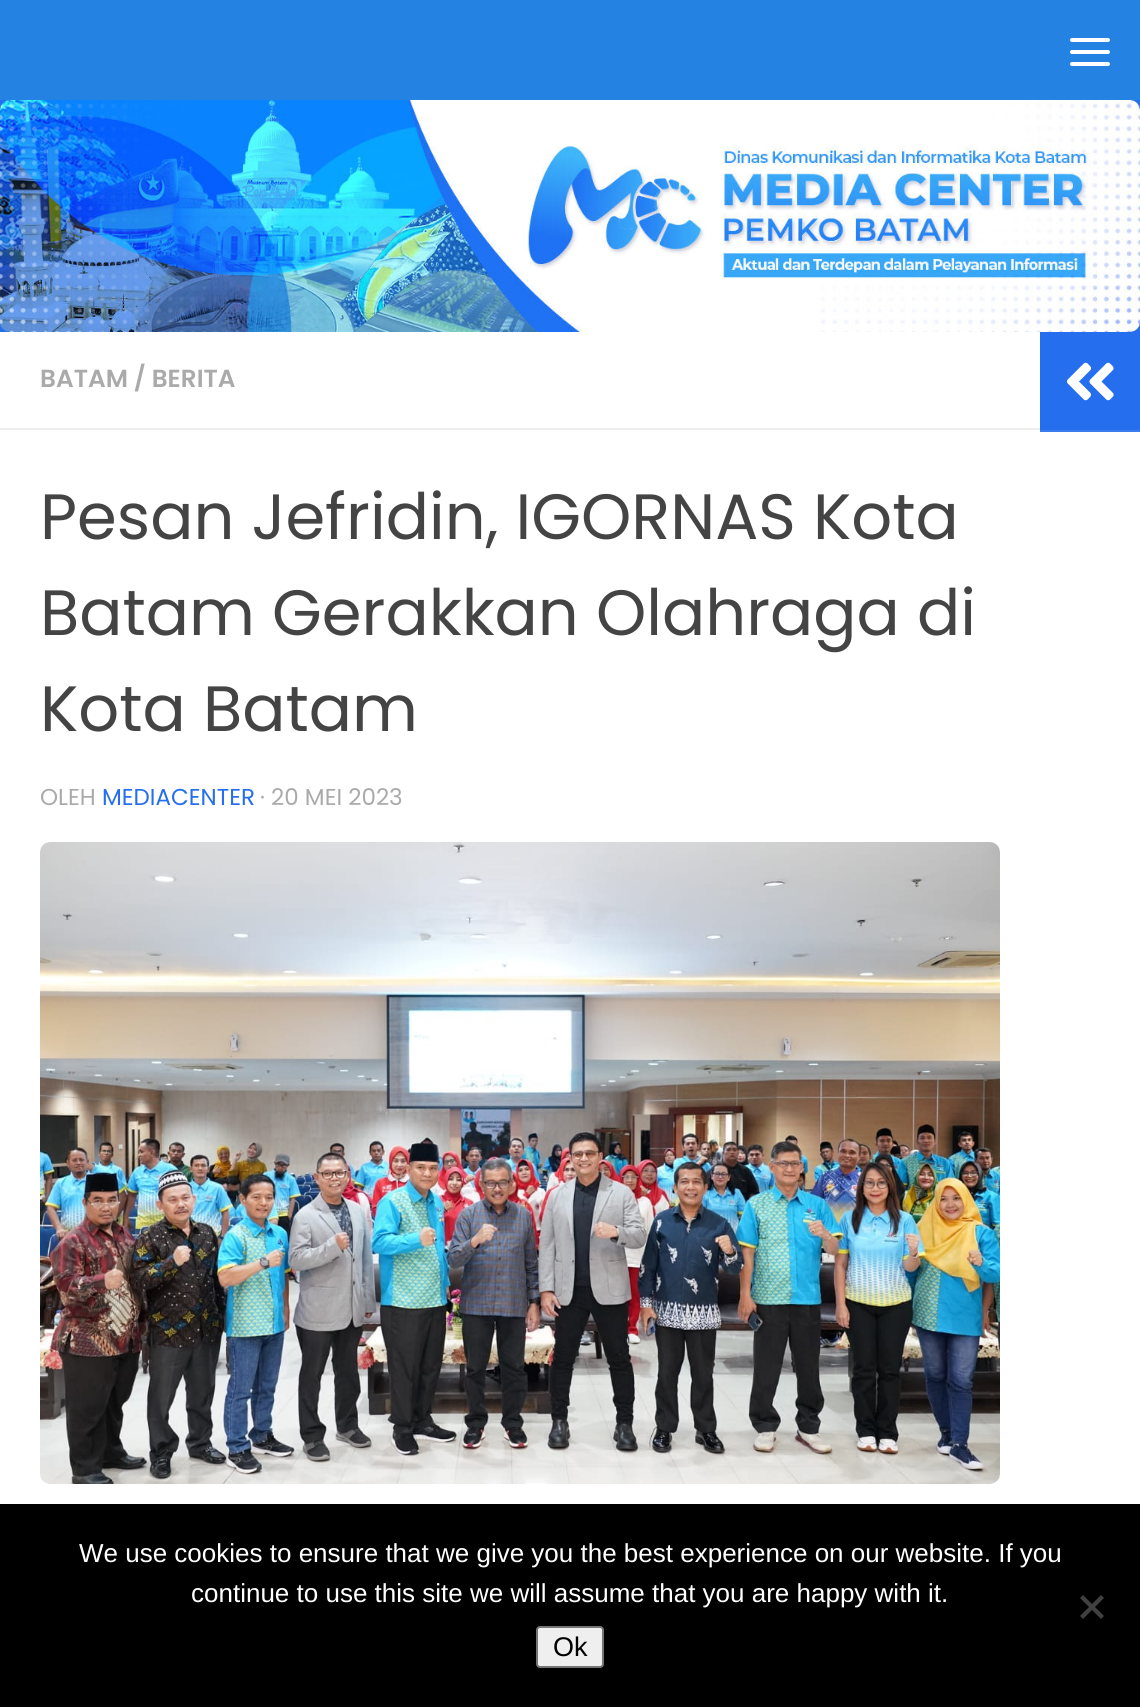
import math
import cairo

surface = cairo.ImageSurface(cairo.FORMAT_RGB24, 1140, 1707)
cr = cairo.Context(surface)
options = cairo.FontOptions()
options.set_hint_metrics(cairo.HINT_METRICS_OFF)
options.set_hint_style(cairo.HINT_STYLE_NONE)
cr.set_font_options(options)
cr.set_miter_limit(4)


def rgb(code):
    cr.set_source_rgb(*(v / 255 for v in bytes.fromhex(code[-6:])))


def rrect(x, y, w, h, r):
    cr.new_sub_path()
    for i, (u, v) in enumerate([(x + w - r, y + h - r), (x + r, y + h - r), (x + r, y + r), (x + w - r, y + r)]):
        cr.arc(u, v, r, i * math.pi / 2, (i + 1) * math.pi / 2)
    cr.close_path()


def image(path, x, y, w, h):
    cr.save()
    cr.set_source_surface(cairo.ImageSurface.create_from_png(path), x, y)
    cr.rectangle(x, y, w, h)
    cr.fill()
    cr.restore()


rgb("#ffffff")
cr.paint()
rgb("#256eed")
cr.rectangle(0, 100, 1140, 232)
cr.fill()
rgb("#2483e2")
cr.rectangle(0, 0, 1140, 100)
cr.fill()
rgb("#ffffff")
rrect(1070, 38, 40, 4, 2)
cr.fill()
rrect(1070, 50, 40, 4, 2)
cr.fill()
rrect(1070, 62, 40, 4, 2)
cr.fill()
image("img/1.png", 0, 100, 1140, 232)
rgb("#eeeeee")
cr.rectangle(0, 428, 1040, 2)
cr.fill()
image("img/2.png", 40, 842, 960, 642)
rgb("#256eed")
cr.rectangle(1040, 332, 100, 98)
cr.fill()
rgb("#3b7def")
cr.rectangle(1040, 430, 100, 2)
cr.fill()
image("img/3.png", 1066, 362, 48, 39)
rgb("#000000")
cr.rectangle(0, 1504, 1140, 203)
cr.fill()
rgb("#404040")
cr.new_path()
cr.move_to(1101, 1595)
cr.line_to(1104, 1598)
cr.line_to(1083, 1619)
cr.line_to(1080, 1616)
cr.close_path()
cr.fill()
cr.new_path()
cr.move_to(1080, 1598)
cr.line_to(1083, 1595)
cr.line_to(1104, 1616)
cr.line_to(1101, 1619)
cr.close_path()
cr.fill()
rgb("#efefef")
rrect(537, 1627, 66, 40, 3)
cr.fill_preserve()
rgb("#767676")
cr.stroke()
cr.select_font_face("Poppins SemiBold")
cr.set_font_size(24.75)
rgb("#aaaaaa")
cr.move_to(40, 387)
cr.show_text("BATAM / BERITA")
cr.select_font_face("Poppins")
cr.set_font_size(64)
rgb("#444444")
for x, y, s in [
    (40, 539, "Pesan Jefridin, IGORNAS Kota"),
    (40, 635, "Batam Gerakkan Olahraga di"),
    (40, 731, "Kota Batam"),
]:
    cr.move_to(x, y)
    cr.show_text(s)
cr.set_font_size(23)
rgb("#aaaaaa")
cr.move_to(40, 805)
cr.show_text("OLEH")
rgb("#256eed")
cr.move_to(102, 805)
cr.show_text("MEDIACENTER")
rgb("#aaaaaa")
cr.move_to(260, 805)
cr.show_text("· 20 MEI 2023")
cr.select_font_face("Liberation Sans")
cr.set_font_size(26)
rgb("#ffffff")
cr.move_to(79, 1562)
cr.show_text("We use cookies to ensure that we give you the best experience on our website. If you")
cr.move_to(191, 1602)
cr.show_text("continue to use this site we will assume that you are happy with it.")
cr.set_font_size(27)
rgb("#000000")
cr.move_to(553, 1656)
cr.show_text("Ok")
surface.write_to_png("page.png")
